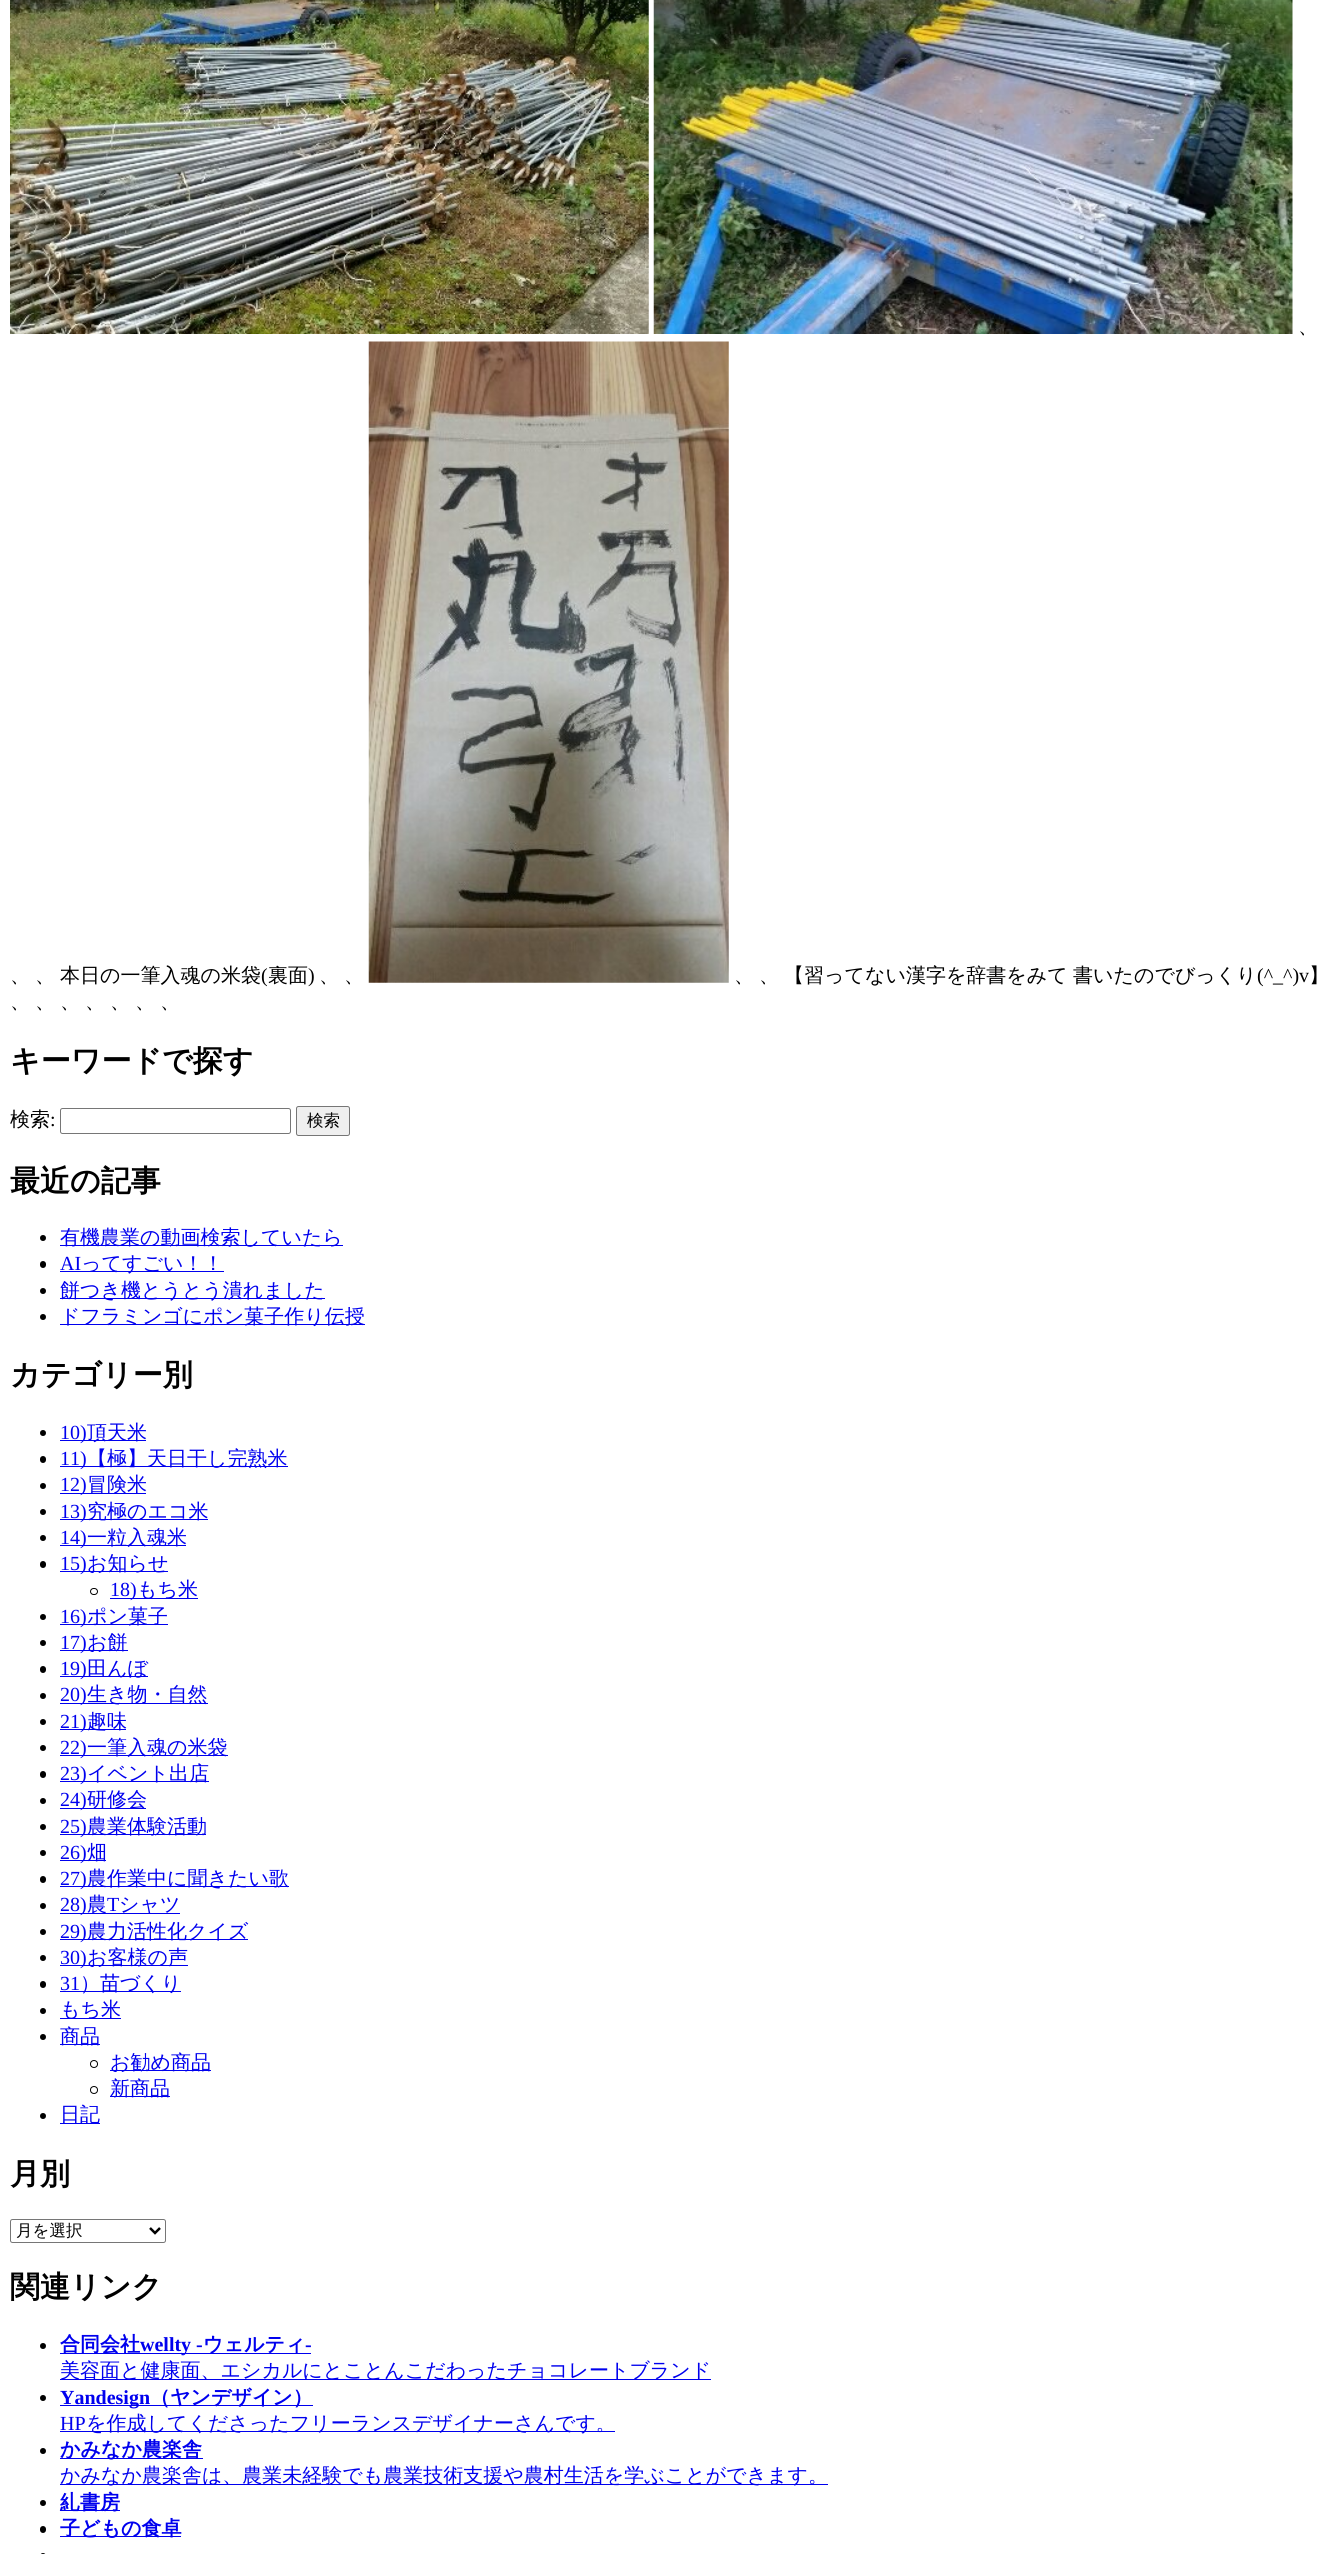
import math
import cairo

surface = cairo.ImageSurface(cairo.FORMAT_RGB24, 1343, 2554)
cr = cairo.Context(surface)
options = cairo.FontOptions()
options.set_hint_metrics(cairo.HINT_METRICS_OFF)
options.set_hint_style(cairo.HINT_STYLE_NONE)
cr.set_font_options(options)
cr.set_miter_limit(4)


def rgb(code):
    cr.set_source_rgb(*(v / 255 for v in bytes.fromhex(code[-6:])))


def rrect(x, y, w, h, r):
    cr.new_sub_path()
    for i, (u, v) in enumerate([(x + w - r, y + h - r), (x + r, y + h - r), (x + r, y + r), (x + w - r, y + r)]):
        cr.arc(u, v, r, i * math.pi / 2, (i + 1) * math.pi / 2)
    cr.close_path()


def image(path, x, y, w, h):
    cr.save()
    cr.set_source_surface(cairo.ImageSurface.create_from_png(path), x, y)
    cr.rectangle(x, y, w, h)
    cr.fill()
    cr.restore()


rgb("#ffffff")
cr.paint()
image("img/1.png", 10, 0, 639, 334)
image("img/2.png", 653, 0, 640, 334)
image("img/3.png", 368, 341, 361, 642)
rrect(60.5, 1108.5, 230, 25, 2)
rgb("#767676")
cr.set_line_width(1)
cr.stroke()
rgb("#efefef")
rrect(296.5, 1106.5, 53, 29, 2)
cr.fill_preserve()
rgb("#767676")
cr.stroke()
rgb("#000000")
cr.arc(43, 1238, 3, 0, 2 * math.pi)
cr.fill()
rgb("#0000ee")
cr.rectangle(60, 1245, 283, 1)
cr.fill()
rgb("#000000")
rrect(40, 1261, 6, 7, 3)
cr.fill()
rgb("#0000ee")
cr.rectangle(60, 1271, 164, 1)
cr.fill()
rgb("#000000")
cr.arc(43, 1291, 3, 0, 2 * math.pi)
cr.fill()
rgb("#0000ee")
cr.rectangle(60, 1298, 265, 1)
cr.fill()
rgb("#000000")
cr.arc(43, 1317, 3, 0, 2 * math.pi)
cr.fill()
rgb("#0000ee")
cr.rectangle(60, 1324, 305, 1)
cr.fill()
rgb("#000000")
cr.arc(43, 1433, 3, 0, 2 * math.pi)
cr.fill()
rgb("#0000ee")
cr.rectangle(60, 1440, 86, 1)
cr.fill()
rgb("#000000")
rrect(40, 1456, 6, 7, 3)
cr.fill()
rgb("#0000ee")
cr.rectangle(60, 1466, 228, 1)
cr.fill()
rgb("#000000")
cr.arc(43, 1486, 3, 0, 2 * math.pi)
cr.fill()
rgb("#0000ee")
cr.rectangle(60, 1493, 86, 1)
cr.fill()
rgb("#000000")
cr.arc(43, 1512, 3, 0, 2 * math.pi)
cr.fill()
rgb("#0000ee")
cr.rectangle(60, 1519, 148, 1)
cr.fill()
rgb("#000000")
cr.arc(43, 1538, 3, 0, 2 * math.pi)
cr.fill()
rgb("#0000ee")
cr.rectangle(60, 1545, 126, 1)
cr.fill()
rgb("#000000")
rrect(40, 1561, 6, 7, 3)
cr.fill()
rgb("#0000ee")
cr.rectangle(60, 1571, 108, 1)
cr.fill()
rrect(90.5, 1588.5, 7, 6, 3)
rgb("#000000")
cr.stroke()
rgb("#0000ee")
cr.rectangle(110, 1598, 88, 1)
cr.fill()
rgb("#000000")
cr.arc(43, 1617, 3, 0, 2 * math.pi)
cr.fill()
rgb("#0000ee")
cr.rectangle(60, 1624, 108, 1)
cr.fill()
rgb("#000000")
cr.arc(43, 1643, 3, 0, 2 * math.pi)
cr.fill()
rgb("#0000ee")
cr.rectangle(60, 1650, 68, 1)
cr.fill()
rgb("#000000")
rrect(40, 1666, 6, 7, 3)
cr.fill()
rgb("#0000ee")
cr.rectangle(60, 1676, 88, 1)
cr.fill()
rgb("#000000")
cr.arc(43, 1696, 3, 0, 2 * math.pi)
cr.fill()
rgb("#0000ee")
cr.rectangle(60, 1703, 148, 1)
cr.fill()
rgb("#000000")
cr.arc(43, 1722, 3, 0, 2 * math.pi)
cr.fill()
rgb("#0000ee")
cr.rectangle(60, 1729, 66, 1)
cr.fill()
rgb("#000000")
cr.arc(43, 1748, 3, 0, 2 * math.pi)
cr.fill()
rgb("#0000ee")
cr.rectangle(60, 1755, 168, 1)
cr.fill()
rgb("#000000")
rrect(40, 1771, 6, 7, 3)
cr.fill()
rgb("#0000ee")
cr.rectangle(60, 1781, 149, 1)
cr.fill()
rgb("#000000")
cr.arc(43, 1801, 3, 0, 2 * math.pi)
cr.fill()
rgb("#0000ee")
cr.rectangle(60, 1808, 86, 1)
cr.fill()
rgb("#000000")
cr.arc(43, 1827, 3, 0, 2 * math.pi)
cr.fill()
rgb("#0000ee")
cr.rectangle(60, 1834, 146, 1)
cr.fill()
rgb("#000000")
cr.arc(43, 1853, 3, 0, 2 * math.pi)
cr.fill()
rgb("#0000ee")
cr.rectangle(60, 1860, 46, 1)
cr.fill()
rgb("#000000")
rrect(40, 1876, 6, 7, 3)
cr.fill()
rgb("#0000ee")
cr.rectangle(60, 1886, 229, 1)
cr.fill()
rgb("#000000")
cr.arc(43, 1906, 3, 0, 2 * math.pi)
cr.fill()
rgb("#0000ee")
cr.rectangle(60, 1913, 120, 1)
cr.fill()
rgb("#000000")
cr.arc(43, 1932, 3, 0, 2 * math.pi)
cr.fill()
rgb("#0000ee")
cr.rectangle(60, 1939, 188, 1)
cr.fill()
rgb("#000000")
cr.arc(43, 1958, 3, 0, 2 * math.pi)
cr.fill()
rgb("#0000ee")
cr.rectangle(60, 1965, 128, 1)
cr.fill()
rgb("#000000")
rrect(40, 1981, 6, 7, 3)
cr.fill()
rgb("#0000ee")
cr.rectangle(60, 1991, 121, 1)
cr.fill()
rgb("#000000")
cr.arc(43, 2011, 3, 0, 2 * math.pi)
cr.fill()
rgb("#0000ee")
cr.rectangle(60, 2018, 61, 1)
cr.fill()
rgb("#000000")
cr.arc(43, 2037, 3, 0, 2 * math.pi)
cr.fill()
rgb("#0000ee")
cr.rectangle(60, 2044, 40, 1)
cr.fill()
cr.arc(94, 2064, 3.5, 0, 2 * math.pi)
rgb("#000000")
cr.stroke()
rgb("#0000ee")
cr.rectangle(110, 2070, 101, 1)
cr.fill()
cr.arc(94, 2090, 3.5, 0, 2 * math.pi)
rgb("#000000")
cr.stroke()
rgb("#0000ee")
cr.rectangle(110, 2096, 60, 1)
cr.fill()
rgb("#000000")
cr.arc(43, 2116, 3, 0, 2 * math.pi)
cr.fill()
rgb("#0000ee")
cr.rectangle(60, 2123, 40, 1)
cr.fill()
rrect(10.5, 2219.5, 155, 23, 2)
rgb("#767676")
cr.stroke()
cr.new_path()
cr.move_to(150, 2228)
cr.line_to(155, 2233)
cr.line_to(160, 2228)
rgb("#000000")
cr.set_line_width(2.5)
cr.stroke()
cr.arc(43, 2346, 3, 0, 2 * math.pi)
cr.fill()
rgb("#0000ee")
cr.rectangle(60, 2353, 251, 1)
cr.fill()
cr.rectangle(60, 2379, 651, 1)
cr.fill()
rgb("#000000")
cr.arc(43, 2398, 3, 0, 2 * math.pi)
cr.fill()
rgb("#0000ee")
cr.rectangle(60, 2405, 253, 1)
cr.fill()
cr.rectangle(60, 2431, 555, 1)
cr.fill()
rgb("#000000")
cr.arc(43, 2451, 3, 0, 2 * math.pi)
cr.fill()
rgb("#0000ee")
cr.rectangle(60, 2458, 143, 1)
cr.fill()
cr.rectangle(60, 2484, 768, 1)
cr.fill()
rgb("#000000")
cr.arc(43, 2503, 3, 0, 2 * math.pi)
cr.fill()
rgb("#0000ee")
cr.rectangle(60, 2510, 60, 1)
cr.fill()
rgb("#000000")
rrect(40, 2526, 6, 7, 3)
cr.fill()
rgb("#0000ee")
cr.rectangle(60, 2536, 121, 1)
cr.fill()
rgb("#000000")
rrect(40, 2553, 6, 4, 3)
cr.fill()
cr.select_font_face("WenQuanYi Zen Hei Medium")
cr.set_font_size(20)
for x, y, s in [
    (1298, 333, "、"),
    (10, 982, "、"),
    (35, 982, "、"),
    (60, 982, "本日の一筆入魂の米袋"),
]:
    cr.move_to(x, y)
    cr.show_text(s)
cr.select_font_face("Liberation Serif")
cr.move_to(261, 982)
cr.show_text("(")
cr.select_font_face("WenQuanYi Zen Hei Medium")
cr.move_to(268, 982)
cr.show_text("裏面")
cr.select_font_face("Liberation Serif")
cr.move_to(308, 982)
cr.show_text(")")
cr.select_font_face("WenQuanYi Zen Hei Medium")
for x, y, s in [
    (319, 982, "、"),
    (344, 982, "、"),
    (734, 982, "、"),
    (759, 982, "、"),
    (784, 982, "【習ってない漢字を辞書をみて"),
    (1073, 982, "書いたのでびっくり"),
]:
    cr.move_to(x, y)
    cr.show_text(s)
cr.select_font_face("Liberation Serif")
cr.move_to(1257, 982)
cr.show_text("(^_^)v")
cr.select_font_face("WenQuanYi Zen Hei Medium")
for x, y, s in [
    (1309, 982, "】"),
    (10, 1008, "、"),
    (35, 1008, "、"),
    (60, 1008, "、"),
    (85, 1008, "、"),
    (110, 1008, "、"),
    (135, 1008, "、"),
    (160, 1008, "、"),
]:
    cr.move_to(x, y)
    cr.show_text(s)
cr.select_font_face("WenQuanYi Zen Hei", cairo.FONT_SLANT_NORMAL, cairo.FONT_WEIGHT_BOLD)
cr.set_font_size(30)
cr.move_to(10, 1071)
cr.show_text("キーワードで探す")
cr.select_font_face("WenQuanYi Zen Hei Medium")
cr.set_font_size(20)
cr.move_to(10, 1126)
cr.show_text("検索")
cr.select_font_face("Liberation Serif")
cr.move_to(50, 1126)
cr.show_text(":")
cr.select_font_face("WenQuanYi Zen Hei Medium")
cr.set_font_size(16.5)
cr.move_to(307, 1126)
cr.show_text("検索")
cr.select_font_face("WenQuanYi Zen Hei", cairo.FONT_SLANT_NORMAL, cairo.FONT_WEIGHT_BOLD)
cr.set_font_size(30)
cr.move_to(10, 1191)
cr.show_text("最近の記事")
cr.select_font_face("WenQuanYi Zen Hei Medium")
cr.set_font_size(20)
rgb("#0000ee")
cr.move_to(60, 1244)
cr.show_text("有機農業の動画検索していたら")
cr.select_font_face("Liberation Serif")
cr.move_to(60, 1270)
cr.show_text("AI")
cr.select_font_face("WenQuanYi Zen Hei Medium")
for x, y, s in [
    (81, 1270, "ってすごい！！"),
    (60, 1297, "餅つき機とうとう潰れました"),
    (60, 1323, "ドフラミンゴにポン菓子作り伝授"),
]:
    cr.move_to(x, y)
    cr.show_text(s)
cr.select_font_face("WenQuanYi Zen Hei", cairo.FONT_SLANT_NORMAL, cairo.FONT_WEIGHT_BOLD)
cr.set_font_size(30)
rgb("#000000")
cr.move_to(10, 1385)
cr.show_text("カテゴリー別")
cr.select_font_face("Liberation Serif")
cr.set_font_size(20)
rgb("#0000ee")
cr.move_to(60, 1439)
cr.show_text("10)")
cr.select_font_face("WenQuanYi Zen Hei Medium")
cr.move_to(87, 1439)
cr.show_text("頂天米")
cr.select_font_face("Liberation Serif")
cr.move_to(60, 1465)
cr.show_text("11)")
cr.select_font_face("WenQuanYi Zen Hei Medium")
cr.move_to(87, 1465)
cr.show_text("【極】天日干し完熟米")
cr.select_font_face("Liberation Serif")
cr.move_to(60, 1491)
cr.show_text("12)")
cr.select_font_face("WenQuanYi Zen Hei Medium")
cr.move_to(87, 1491)
cr.show_text("冒険米")
cr.select_font_face("Liberation Serif")
cr.move_to(60, 1518)
cr.show_text("13)")
cr.select_font_face("WenQuanYi Zen Hei Medium")
cr.move_to(87, 1518)
cr.show_text("究極のエコ米")
cr.select_font_face("Liberation Serif")
cr.move_to(60, 1544)
cr.show_text("14)")
cr.select_font_face("WenQuanYi Zen Hei Medium")
cr.move_to(87, 1544)
cr.show_text("一粒入魂米")
cr.select_font_face("Liberation Serif")
cr.move_to(60, 1570)
cr.show_text("15)")
cr.select_font_face("WenQuanYi Zen Hei Medium")
cr.move_to(87, 1570)
cr.show_text("お知らせ")
cr.select_font_face("Liberation Serif")
cr.move_to(110, 1596)
cr.show_text("18)")
cr.select_font_face("WenQuanYi Zen Hei Medium")
cr.move_to(137, 1596)
cr.show_text("もち米")
cr.select_font_face("Liberation Serif")
cr.move_to(60, 1623)
cr.show_text("16)")
cr.select_font_face("WenQuanYi Zen Hei Medium")
cr.move_to(87, 1623)
cr.show_text("ポン菓子")
cr.select_font_face("Liberation Serif")
cr.move_to(60, 1649)
cr.show_text("17)")
cr.select_font_face("WenQuanYi Zen Hei Medium")
cr.move_to(87, 1649)
cr.show_text("お餅")
cr.select_font_face("Liberation Serif")
cr.move_to(60, 1675)
cr.show_text("19)")
cr.select_font_face("WenQuanYi Zen Hei Medium")
cr.move_to(87, 1675)
cr.show_text("田んぼ")
cr.select_font_face("Liberation Serif")
cr.move_to(60, 1701)
cr.show_text("20)")
cr.select_font_face("WenQuanYi Zen Hei Medium")
cr.move_to(87, 1701)
cr.show_text("生き物・自然")
cr.select_font_face("Liberation Serif")
cr.move_to(60, 1728)
cr.show_text("21)")
cr.select_font_face("WenQuanYi Zen Hei Medium")
cr.move_to(87, 1728)
cr.show_text("趣味")
cr.select_font_face("Liberation Serif")
cr.move_to(60, 1754)
cr.show_text("22)")
cr.select_font_face("WenQuanYi Zen Hei Medium")
cr.move_to(87, 1754)
cr.show_text("一筆入魂の米袋")
cr.select_font_face("Liberation Serif")
cr.move_to(60, 1780)
cr.show_text("23)")
cr.select_font_face("WenQuanYi Zen Hei Medium")
cr.move_to(87, 1780)
cr.show_text("イベント出店")
cr.select_font_face("Liberation Serif")
cr.move_to(60, 1806)
cr.show_text("24)")
cr.select_font_face("WenQuanYi Zen Hei Medium")
cr.move_to(87, 1806)
cr.show_text("研修会")
cr.select_font_face("Liberation Serif")
cr.move_to(60, 1833)
cr.show_text("25)")
cr.select_font_face("WenQuanYi Zen Hei Medium")
cr.move_to(87, 1833)
cr.show_text("農業体験活動")
cr.select_font_face("Liberation Serif")
cr.move_to(60, 1859)
cr.show_text("26)")
cr.select_font_face("WenQuanYi Zen Hei Medium")
cr.move_to(87, 1859)
cr.show_text("畑")
cr.select_font_face("Liberation Serif")
cr.move_to(60, 1885)
cr.show_text("27)")
cr.select_font_face("WenQuanYi Zen Hei Medium")
cr.move_to(87, 1885)
cr.show_text("農作業中に聞きたい歌")
cr.select_font_face("Liberation Serif")
cr.move_to(60, 1911)
cr.show_text("28)")
cr.select_font_face("WenQuanYi Zen Hei Medium")
cr.move_to(87, 1911)
cr.show_text("農")
cr.select_font_face("Liberation Serif")
cr.move_to(107, 1911)
cr.show_text("T")
cr.select_font_face("WenQuanYi Zen Hei Medium")
cr.move_to(119, 1911)
cr.show_text("シャツ")
cr.select_font_face("Liberation Serif")
cr.move_to(60, 1938)
cr.show_text("29)")
cr.select_font_face("WenQuanYi Zen Hei Medium")
cr.move_to(87, 1938)
cr.show_text("農力活性化クイズ")
cr.select_font_face("Liberation Serif")
cr.move_to(60, 1964)
cr.show_text("30)")
cr.select_font_face("WenQuanYi Zen Hei Medium")
cr.move_to(87, 1964)
cr.show_text("お客様の声")
cr.select_font_face("Liberation Serif")
cr.move_to(60, 1990)
cr.show_text("31")
cr.select_font_face("WenQuanYi Zen Hei Medium")
for x, y, s in [
    (80, 1990, "）苗づくり"),
    (60, 2016, "もち米"),
    (60, 2043, "商品"),
    (110, 2069, "お勧め商品"),
    (110, 2095, "新商品"),
    (60, 2121, "日記"),
]:
    cr.move_to(x, y)
    cr.show_text(s)
cr.select_font_face("WenQuanYi Zen Hei", cairo.FONT_SLANT_NORMAL, cairo.FONT_WEIGHT_BOLD)
cr.set_font_size(30)
rgb("#000000")
cr.move_to(10, 2184)
cr.show_text("月別")
cr.select_font_face("WenQuanYi Zen Hei Medium")
cr.set_font_size(16.5)
cr.move_to(16, 2236)
cr.show_text("月を選択")
cr.select_font_face("WenQuanYi Zen Hei", cairo.FONT_SLANT_NORMAL, cairo.FONT_WEIGHT_BOLD)
cr.set_font_size(30)
cr.move_to(10, 2297)
cr.show_text("関連リンク")
cr.set_font_size(20)
rgb("#0000ee")
cr.move_to(60, 2351)
cr.show_text("合同会社")
cr.select_font_face("Liberation Serif", cairo.FONT_SLANT_NORMAL, cairo.FONT_WEIGHT_BOLD)
cr.move_to(140, 2351)
cr.show_text("wellty -")
cr.select_font_face("WenQuanYi Zen Hei", cairo.FONT_SLANT_NORMAL, cairo.FONT_WEIGHT_BOLD)
cr.move_to(203, 2351)
cr.show_text("ウェルティ")
cr.select_font_face("Liberation Serif", cairo.FONT_SLANT_NORMAL, cairo.FONT_WEIGHT_BOLD)
cr.move_to(305, 2351)
cr.show_text("-")
cr.select_font_face("WenQuanYi Zen Hei Medium")
cr.move_to(60, 2377)
cr.show_text("美容面と健康面、エシカルにとことんこだわったチョコレートブランド")
cr.select_font_face("Liberation Serif", cairo.FONT_SLANT_NORMAL, cairo.FONT_WEIGHT_BOLD)
cr.move_to(60, 2404)
cr.show_text("Yandesign")
cr.select_font_face("WenQuanYi Zen Hei", cairo.FONT_SLANT_NORMAL, cairo.FONT_WEIGHT_BOLD)
cr.move_to(150, 2404)
cr.show_text("（ヤンデザイン）")
cr.select_font_face("Liberation Serif")
cr.move_to(60, 2430)
cr.show_text("HP")
cr.select_font_face("WenQuanYi Zen Hei Medium")
cr.move_to(86, 2430)
cr.show_text("を作成してくださったフリーランスデザイナーさんです。")
cr.select_font_face("WenQuanYi Zen Hei", cairo.FONT_SLANT_NORMAL, cairo.FONT_WEIGHT_BOLD)
cr.move_to(60, 2456)
cr.show_text("かみなか農楽舎")
cr.select_font_face("WenQuanYi Zen Hei Medium")
cr.move_to(60, 2482)
cr.show_text("かみなか農楽舎は、農業未経験でも農業技術支援や農村生活を学ぶことができます。")
cr.select_font_face("WenQuanYi Zen Hei", cairo.FONT_SLANT_NORMAL, cairo.FONT_WEIGHT_BOLD)
cr.move_to(60, 2509)
cr.show_text("糺書房")
cr.move_to(60, 2535)
cr.show_text("子どもの食卓")
surface.write_to_png("page.png")
